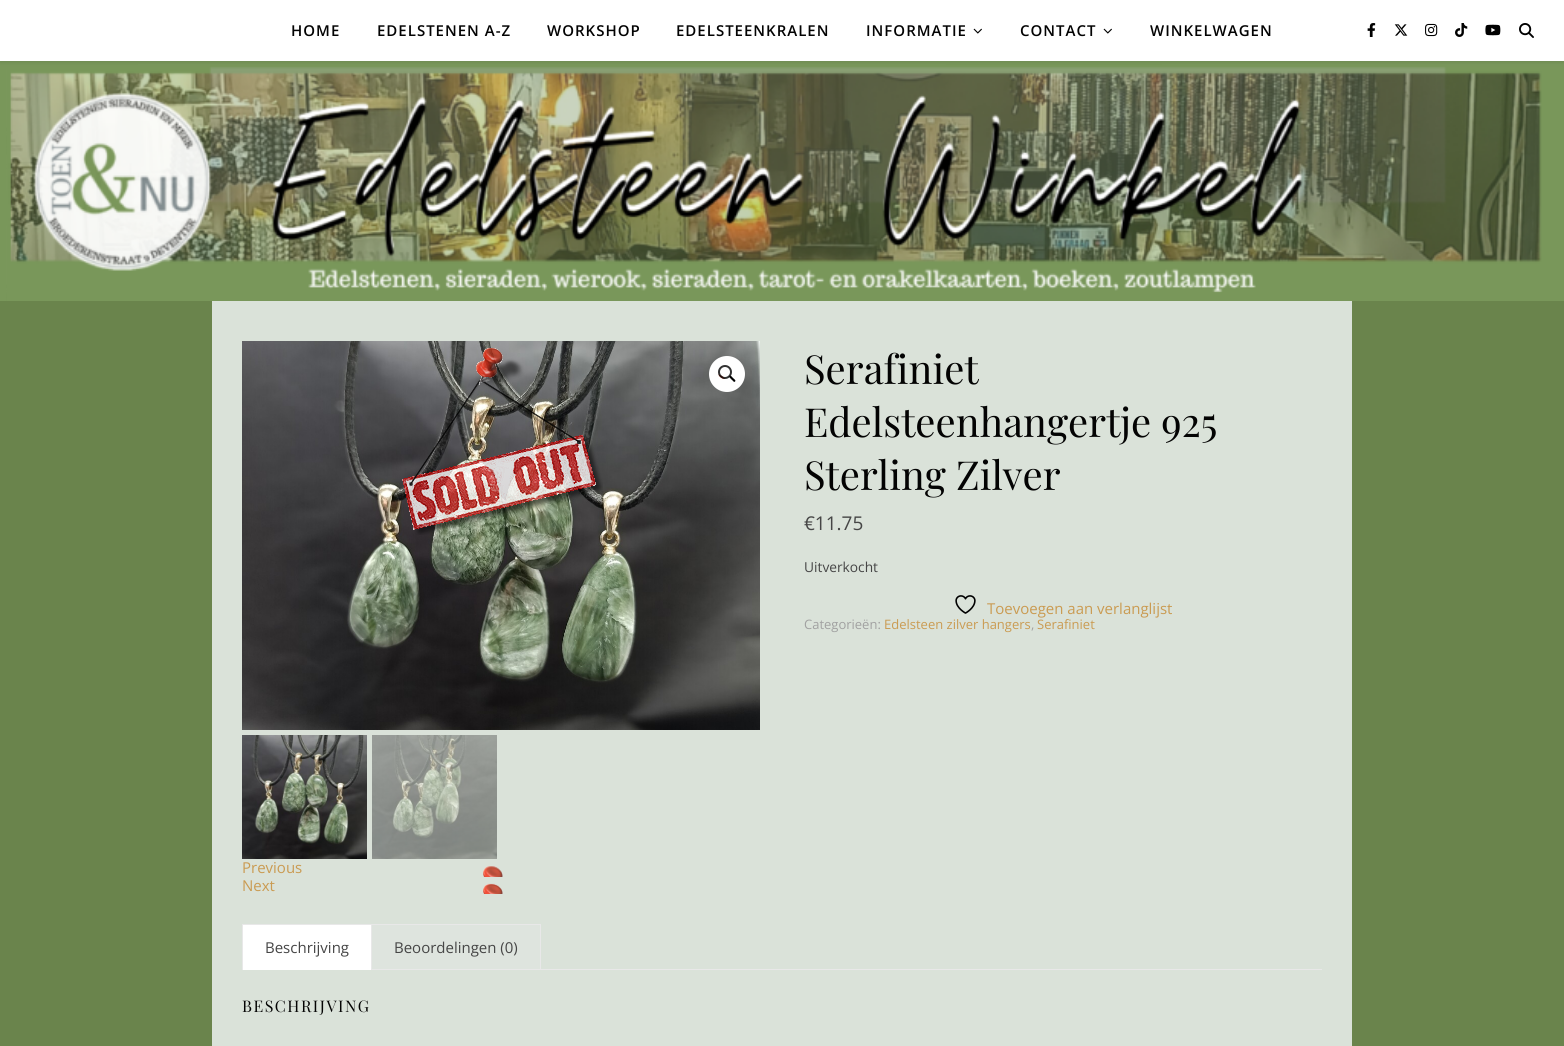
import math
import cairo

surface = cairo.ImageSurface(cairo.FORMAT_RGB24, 1564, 1046)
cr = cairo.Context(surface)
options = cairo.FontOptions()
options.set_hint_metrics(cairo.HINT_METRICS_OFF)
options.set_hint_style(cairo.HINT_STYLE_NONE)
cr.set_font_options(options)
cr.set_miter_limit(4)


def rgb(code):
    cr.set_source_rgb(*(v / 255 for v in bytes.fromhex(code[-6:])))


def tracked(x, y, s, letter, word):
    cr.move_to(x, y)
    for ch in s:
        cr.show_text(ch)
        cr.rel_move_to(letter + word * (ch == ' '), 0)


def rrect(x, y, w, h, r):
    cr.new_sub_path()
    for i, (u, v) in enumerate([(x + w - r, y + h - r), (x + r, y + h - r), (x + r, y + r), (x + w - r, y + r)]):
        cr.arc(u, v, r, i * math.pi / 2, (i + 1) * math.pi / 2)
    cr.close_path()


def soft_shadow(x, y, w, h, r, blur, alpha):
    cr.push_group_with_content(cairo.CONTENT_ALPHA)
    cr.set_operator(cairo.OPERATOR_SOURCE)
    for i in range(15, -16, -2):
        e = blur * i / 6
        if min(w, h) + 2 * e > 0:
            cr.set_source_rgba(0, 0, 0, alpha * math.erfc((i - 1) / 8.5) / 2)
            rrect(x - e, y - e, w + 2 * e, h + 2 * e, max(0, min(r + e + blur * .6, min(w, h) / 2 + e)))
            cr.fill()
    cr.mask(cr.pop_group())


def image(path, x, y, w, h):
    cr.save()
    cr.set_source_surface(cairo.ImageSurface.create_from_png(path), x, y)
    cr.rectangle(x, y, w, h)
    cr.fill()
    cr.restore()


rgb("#6a844c")
cr.paint()
image("img/8.png", 0, 61, 1564, 240)
image("img/9.png", 7, 65, 1557, 236)
rgb("#000000")
soft_shadow(0, 1, 1564, 61, 0, 2.5, 0.1)
rgb("#ffffff")
cr.rectangle(0, 0, 1564, 61)
cr.fill()
image("img/1.png", 973, 28, 9, 6)
image("img/1.png", 1103, 28, 9, 6)
image("img/2.png", 1367, 23, 9, 14)
image("img/3.png", 1394, 24, 14, 12)
image("img/4.png", 1425, 23, 13, 14)
image("img/5.png", 1455, 23, 13, 14)
image("img/6.png", 1485, 24, 16, 12)
image("img/7.png", 1519, 23, 15, 15)
rgb("#dae2d9")
cr.rectangle(212, 301, 1140, 745)
cr.fill()
image("img/10.png", 955, 595, 21, 19)
image("img/11.png", 242, 341, 518, 389)
image("img/12.png", 402, 348, 201, 187)
rgb("#ffffff")
cr.arc(727, 374, 18, 0, 2 * math.pi)
cr.fill()
image("img/13.png", 718, 374, 7, 5)
rgb("#000000")
cr.new_path()
cr.move_to(729.5, 376)
cr.curve_to(731, 375, 732.5, 377.5, 733, 378)
cr.curve_to(733.5, 378.5, 736.5, 380.5, 735, 381.5)
cr.curve_to(734, 383, 732.5, 380, 731.5, 379.5)
cr.curve_to(731, 379, 728.5, 377, 729.5, 376)
cr.close_path()
cr.fill()
cr.arc(725, 372, 6, 0, 2 * math.pi)
cr.set_source_rgba(0, 0, 0, 0.8)
cr.stroke()
image("img/14.png", 242, 735, 125, 124)
image("img/15.png", 372, 735, 125, 124)
image("img/16.png", 483, 866, 20, 11)
image("img/17.png", 483, 883, 20, 11)
for x, y, w, h, color in [
    (243, 925, 128, 45, "#ffffff"),
    (242, 924, 299, 1, "#e8e8e8"),
    (371, 924, 1, 46, "#e8e8e8"),
    (242, 924, 1, 46, "#e8e8e8"),
    (372, 925, 168, 44, "#dee4de"),
    (540, 924, 1, 46, "#e8e8e8"),
    (372, 969, 950, 1, "#e8e8e8"),
]:
    rgb(color)
    cr.rectangle(x, y, w, h)
    cr.fill()
cr.select_font_face("Open Sans SemiBold")
cr.set_font_size(15)
rgb("#030303")
for x, y, s in [
    (291, 36, "HOME"),
    (377, 36, "EDELSTENEN A-Z"),
    (547, 36, "WORKSHOP"),
    (676, 36, "EDELSTEENKRALEN"),
    (866, 36, "INFORMATIE"),
    (1020, 36, "CONTACT"),
    (1150, 36, "WINKELWAGEN"),
]:
    tracked(x, y, s, 1, 0)
cr.select_font_face("Playfair Display")
cr.set_font_size(40)
for x, y, s in [
    (804, 384, "Serafiniet"),
    (804, 437, "Edelsteenhangertje 925"),
    (804, 490, "Sterling Zilver"),
]:
    cr.move_to(x, y)
    cr.show_text(s)
cr.select_font_face("Open Sans")
cr.set_font_size(19)
rgb("#464646")
cr.move_to(804, 530)
cr.show_text("€11.75")
cr.set_font_size(13.75)
cr.move_to(804, 572)
cr.show_text("Uitverkocht")
cr.set_font_size(15)
rgb("#ca9b52")
cr.move_to(987, 614)
cr.show_text("Toevoegen aan verlanglijst")
cr.set_font_size(13)
rgb("#a1a1a1")
cr.move_to(804, 629)
cr.show_text("Categorieën:")
rgb("#ca9b52")
cr.move_to(884, 629)
cr.show_text("Edelsteen zilver hangers")
rgb("#a1a1a1")
cr.move_to(1031, 629)
cr.show_text(",")
rgb("#ca9b52")
cr.move_to(1037, 629)
cr.show_text("Serafiniet")
cr.set_font_size(15)
cr.move_to(242, 873)
cr.show_text("Previous")
cr.move_to(242, 891)
cr.show_text("Next")
rgb("#464646")
cr.move_to(265, 953)
cr.show_text("Beschrijving")
cr.move_to(394, 953)
cr.show_text("Beoordelingen (0)")
cr.select_font_face("Playfair Display")
cr.set_font_size(16)
rgb("#030303")
tracked(242, 1012, "BESCHRIJVING", 1.5, 0)
surface.write_to_png("page.png")
